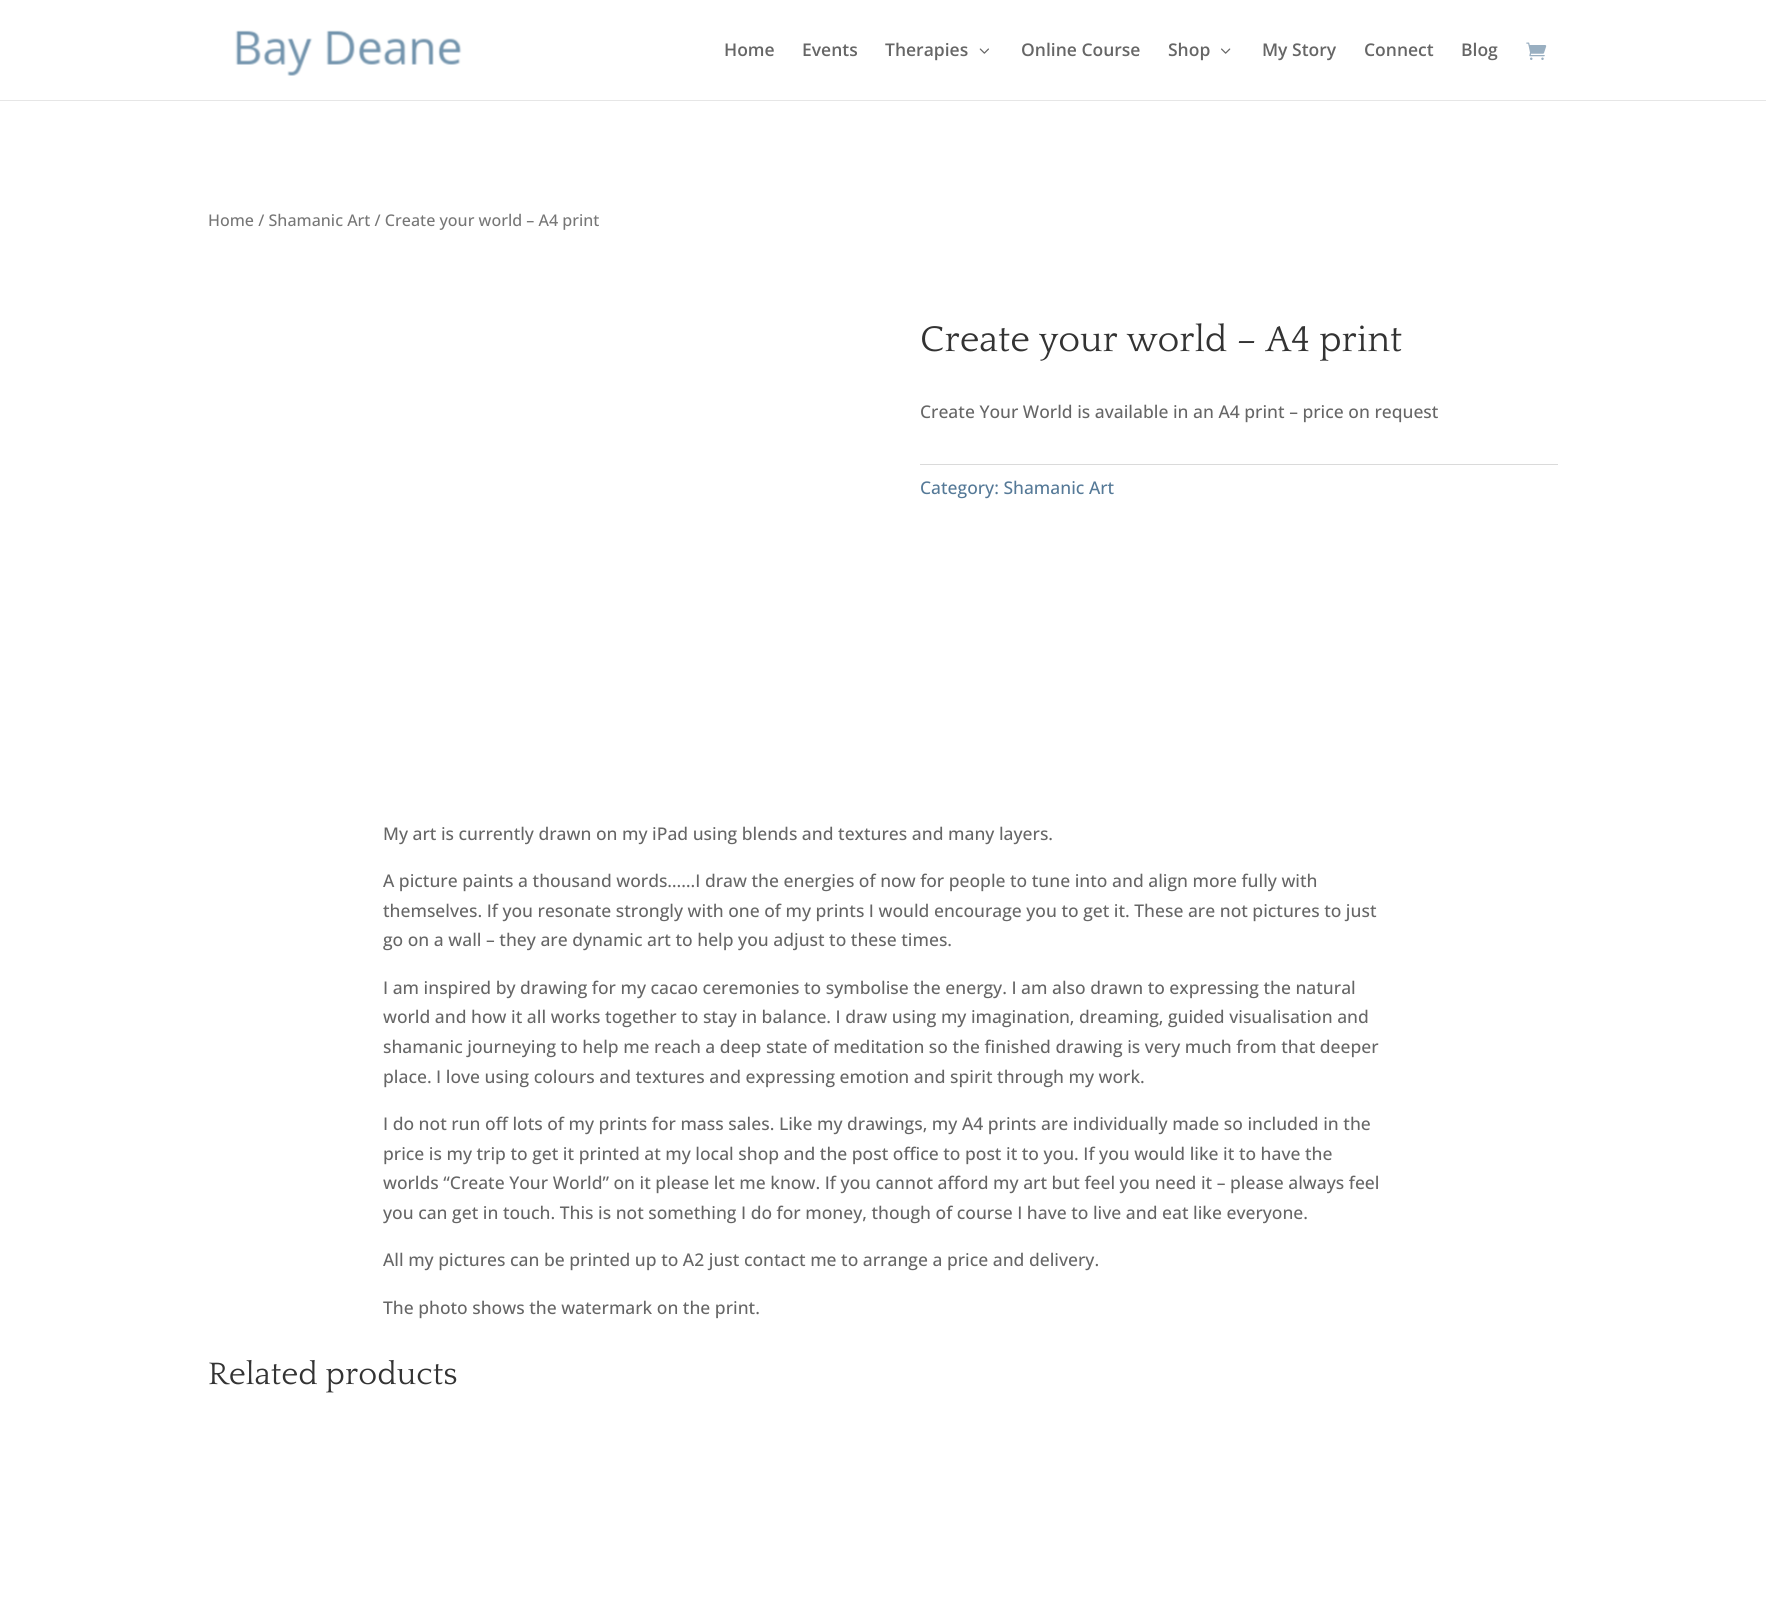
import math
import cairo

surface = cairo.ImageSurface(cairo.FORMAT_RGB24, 1766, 1603)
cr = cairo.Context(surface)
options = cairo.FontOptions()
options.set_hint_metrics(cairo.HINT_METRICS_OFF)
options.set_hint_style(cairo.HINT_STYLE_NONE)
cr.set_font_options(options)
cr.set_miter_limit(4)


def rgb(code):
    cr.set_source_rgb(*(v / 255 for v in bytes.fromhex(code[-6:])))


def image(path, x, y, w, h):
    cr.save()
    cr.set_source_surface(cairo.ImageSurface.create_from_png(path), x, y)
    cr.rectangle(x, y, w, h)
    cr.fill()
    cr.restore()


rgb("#ffffff")
cr.paint()
rgb("#e6e6e6")
cr.rectangle(0, 100, 1766, 1)
cr.fill()
image("img/1.png", 235, 30, 227, 46)
image("img/2.png", 979, 48, 10, 6)
image("img/3.png", 1221, 48, 10, 6)
image("img/4.png", 1526, 42, 21, 18)
rgb("#dadada")
cr.rectangle(920, 464, 638, 1)
cr.fill()
cr.select_font_face("Open Sans SemiBold")
cr.set_font_size(17.5)
rgb("#666666")
for x, y, s in [
    (724, 56, "Home"),
    (802, 56, "Events"),
    (885, 56, "Therapies"),
    (1021, 56, "Online Course"),
    (1168, 56, "Shop"),
    (1262, 56, "My Story"),
    (1364, 56, "Connect"),
    (1461, 56, "Blog"),
]:
    cr.move_to(x, y)
    cr.show_text(s)
cr.select_font_face("Open Sans Medium")
cr.set_font_size(16.1)
rgb("#767676")
cr.move_to(208, 226)
cr.show_text("Home / Shamanic Art / Create your world – A4 print")
cr.select_font_face("Quattrocento")
cr.set_font_size(37.5)
rgb("#333333")
cr.move_to(920, 351)
cr.show_text("Create your world – A4 print")
cr.select_font_face("Open Sans Medium")
cr.set_font_size(17.5)
rgb("#666666")
cr.move_to(920, 418)
cr.show_text("Create Your World is available in an A4 print – price on request")
rgb("#557997")
cr.move_to(920, 494)
cr.show_text("Category: Shamanic Art")
rgb("#666666")
for x, y, s in [
    (383, 840, "My art is currently drawn on my iPad using blends and textures and many layers."),
    (383, 887, "A picture paints a thousand words……I draw the energies of now for people to tune into and align more fully with"),
    (383, 917, "themselves. If you resonate strongly with one of my prints I would encourage you to get it. These are not pictures to just"),
    (383, 946, "go on a wall – they are dynamic art to help you adjust to these times."),
    (383, 994, "I am inspired by drawing for my cacao ceremonies to symbolise the energy. I am also drawn to expressing the natural"),
    (383, 1023, "world and how it all works together to stay in balance. I draw using my imagination, dreaming, guided visualisation and"),
    (383, 1053, "shamanic journeying to help me reach a deep state of meditation so the finished drawing is very much from that deeper"),
    (383, 1083, "place. I love using colours and textures and expressing emotion and spirit through my work."),
    (383, 1130, "I do not run off lots of my prints for mass sales. Like my drawings, my A4 prints are individually made so included in the"),
    (383, 1160, "price is my trip to get it printed at my local shop and the post office to post it to you. If you would like it to have the"),
    (383, 1189, "worlds “Create Your World” on it please let me know. If you cannot afford my art but feel you need it – please always feel"),
    (383, 1219, "you can get in touch. This is not something I do for money, though of course I have to live and eat like everyone."),
    (383, 1266, "All my pictures can be printed up to A2 just contact me to arrange a price and delivery."),
    (383, 1314, "The photo shows the watermark on the print."),
]:
    cr.move_to(x, y)
    cr.show_text(s)
cr.select_font_face("Quattrocento")
cr.set_font_size(32.5)
rgb("#333333")
cr.move_to(208, 1384)
cr.show_text("Related products")
surface.write_to_png("page.png")
